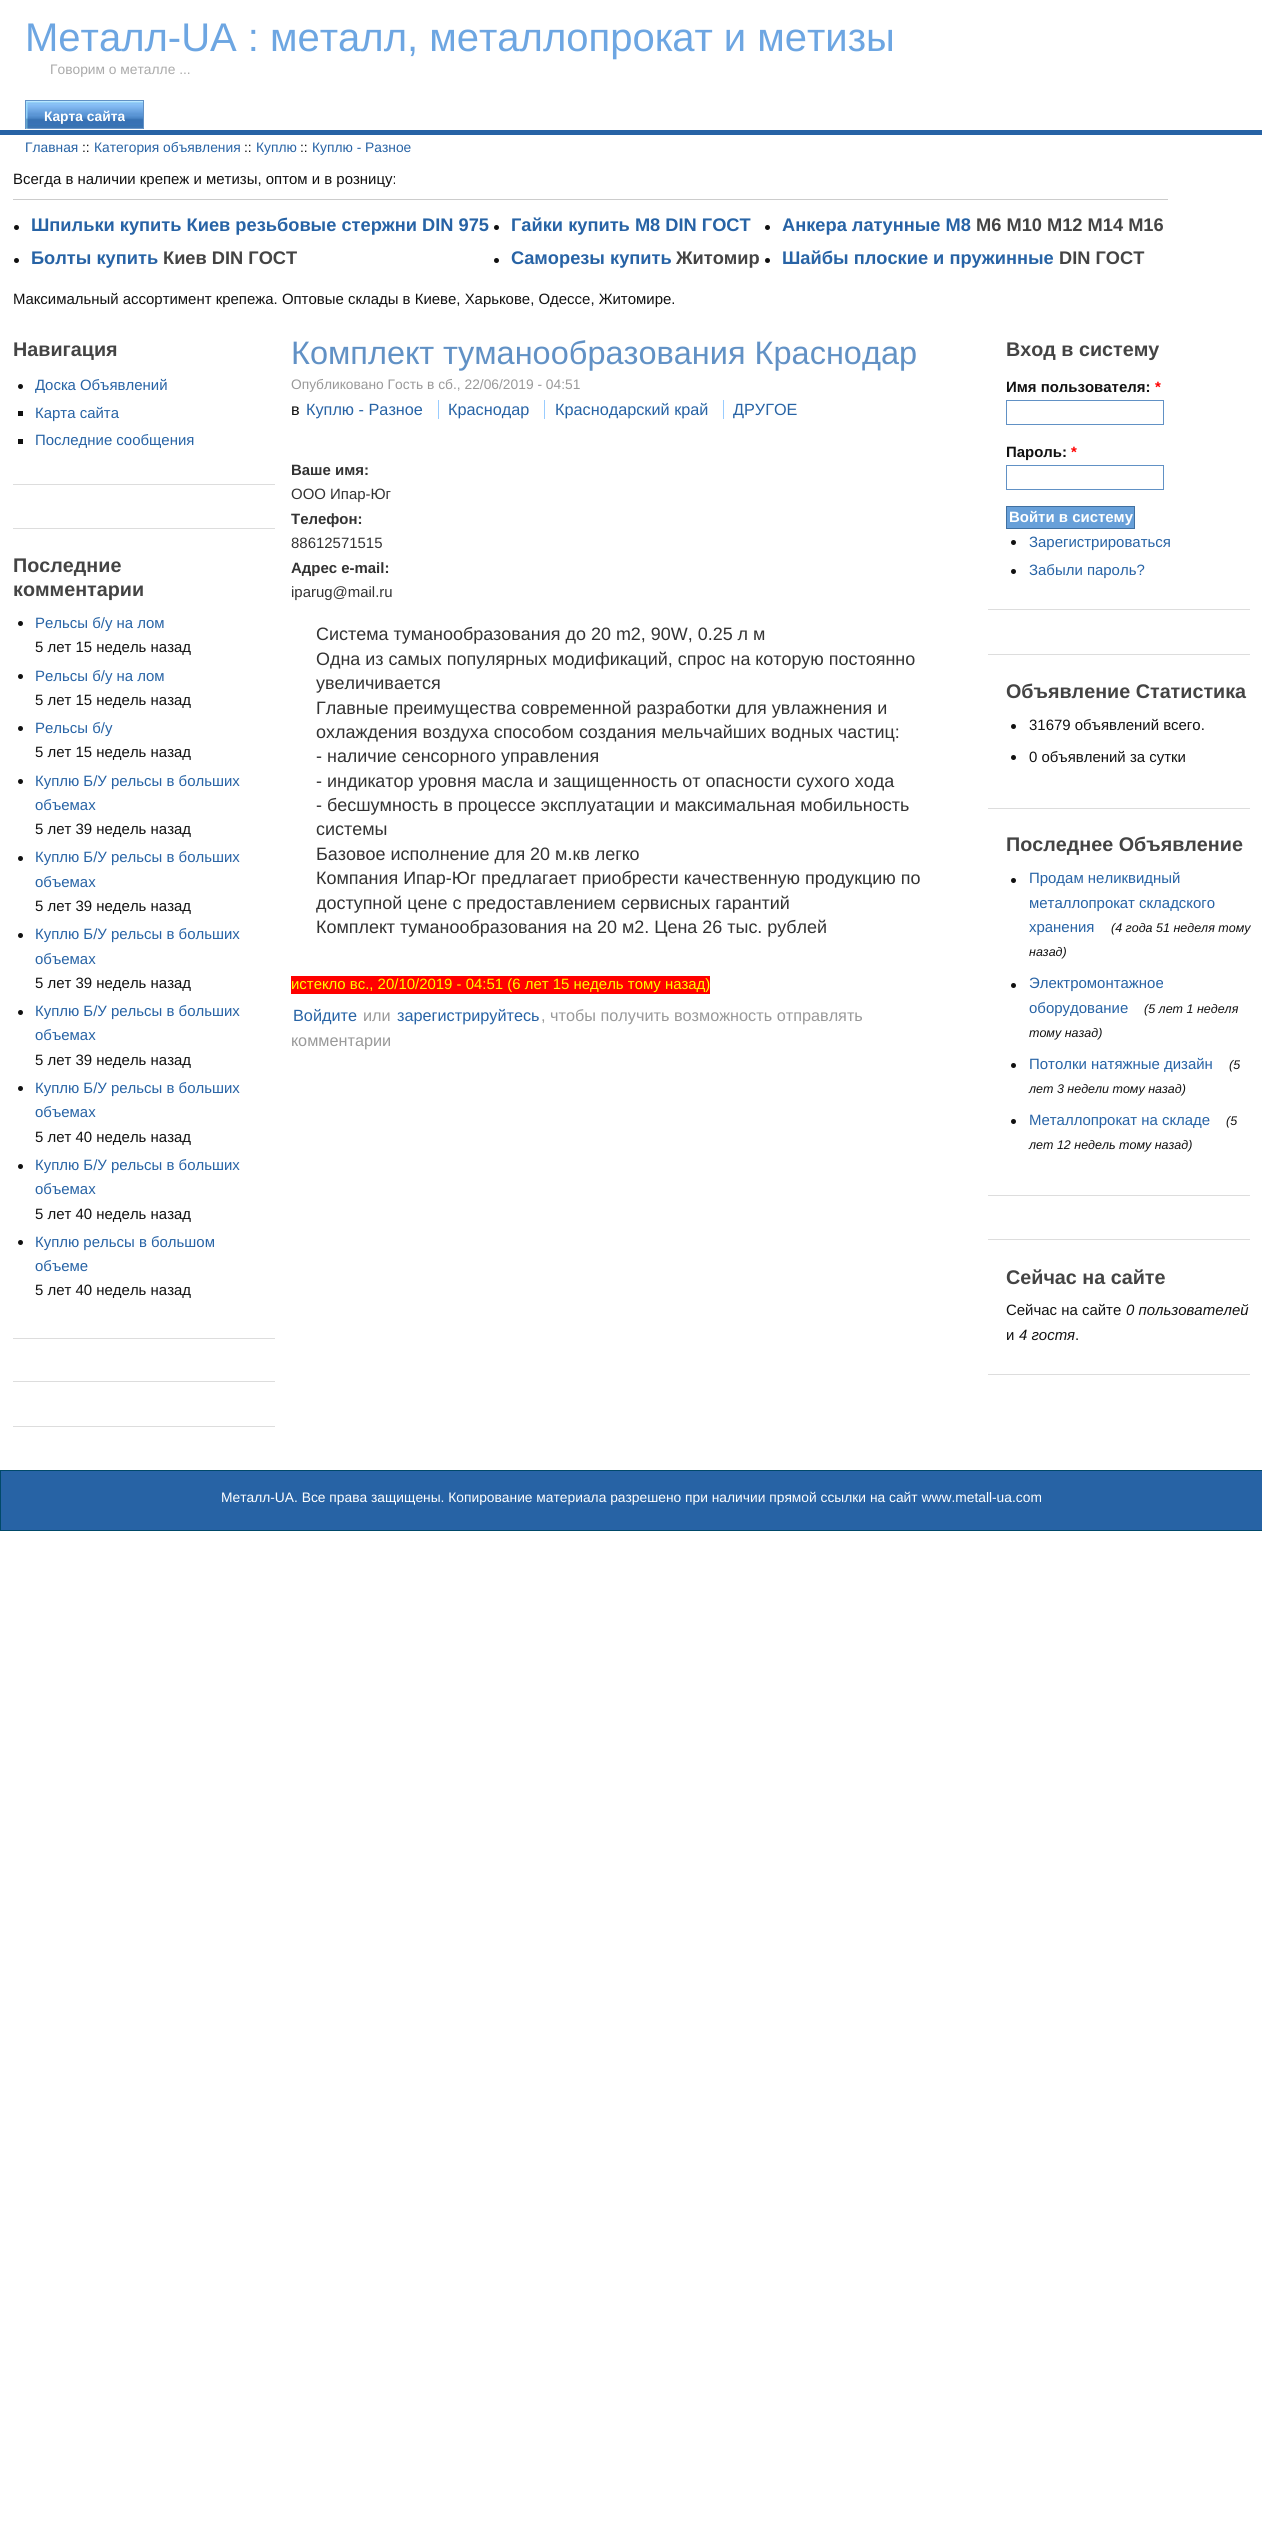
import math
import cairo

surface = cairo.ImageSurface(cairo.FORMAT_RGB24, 1262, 2524)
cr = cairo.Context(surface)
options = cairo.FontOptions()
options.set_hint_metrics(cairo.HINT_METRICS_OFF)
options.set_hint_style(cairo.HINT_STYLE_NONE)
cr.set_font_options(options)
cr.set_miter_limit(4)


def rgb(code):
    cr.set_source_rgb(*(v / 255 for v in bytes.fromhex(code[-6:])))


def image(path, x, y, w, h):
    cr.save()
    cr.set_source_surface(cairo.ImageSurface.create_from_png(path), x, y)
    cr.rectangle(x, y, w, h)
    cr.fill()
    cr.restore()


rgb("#ffffff")
cr.paint()
rgb("#2763a5")
cr.rectangle(0, 130, 1262, 5)
cr.fill()
image("img/1.png", 26, 101, 117, 28)
for x, y, w, h, color in [
    (25, 100, 119, 1, "#6191c5"),
    (143, 100, 1, 29, "#6191c5"),
    (25, 100, 1, 29, "#6191c5"),
    (13, 199, 1155, 1, "#cccccc"),
]:
    rgb(color)
    cr.rectangle(x, y, w, h)
    cr.fill()
rgb("#111111")
cr.arc(16.5, 227.5, 2.5, 0, 2 * math.pi)
cr.fill()
cr.arc(16.5, 260.5, 2.5, 0, 2 * math.pi)
cr.fill()
cr.arc(496.5, 227.5, 2.5, 0, 2 * math.pi)
cr.fill()
cr.arc(496.5, 260.5, 2.5, 0, 2 * math.pi)
cr.fill()
cr.arc(767.5, 227.5, 2.5, 0, 2 * math.pi)
cr.fill()
cr.arc(767.5, 260.5, 2.5, 0, 2 * math.pi)
cr.fill()
rgb("#dddddd")
cr.rectangle(13, 484, 262, 1)
cr.fill()
rgb("#111111")
cr.arc(20.5, 386.5, 2.5, 0, 2 * math.pi)
cr.fill()
for x, y, w, h, color in [
    (18, 411, 5, 5, "#111111"),
    (18, 439, 5, 5, "#111111"),
    (13, 528, 262, 1, "#dddddd"),
    (13, 1338, 262, 1, "#dddddd"),
]:
    rgb(color)
    cr.rectangle(x, y, w, h)
    cr.fill()
rgb("#111111")
cr.arc(20.5, 623.5, 2.5, 0, 2 * math.pi)
cr.fill()
cr.arc(20.5, 676.5, 2.5, 0, 2 * math.pi)
cr.fill()
cr.arc(20.5, 728.5, 2.5, 0, 2 * math.pi)
cr.fill()
cr.arc(20.5, 781.5, 2.5, 0, 2 * math.pi)
cr.fill()
cr.arc(20.5, 858.5, 2.5, 0, 2 * math.pi)
cr.fill()
cr.arc(20.5, 935.5, 2.5, 0, 2 * math.pi)
cr.fill()
cr.arc(20.5, 1012.5, 2.5, 0, 2 * math.pi)
cr.fill()
cr.arc(20.5, 1088.5, 2.5, 0, 2 * math.pi)
cr.fill()
cr.arc(20.5, 1166.5, 2.5, 0, 2 * math.pi)
cr.fill()
cr.arc(20.5, 1242.5, 2.5, 0, 2 * math.pi)
cr.fill()
for x, y, w, h, color in [
    (13, 1381, 262, 1, "#dddddd"),
    (13, 1426, 262, 1, "#dddddd"),
    (438, 400, 1, 19, "#99ccff"),
    (544, 400, 1, 19, "#99ccff"),
    (723, 400, 1, 19, "#99ccff"),
    (291, 976, 419, 18, "#ff0000"),
    (988, 609, 262, 1, "#dddddd"),
]:
    rgb(color)
    cr.rectangle(x, y, w, h)
    cr.fill()
cr.rectangle(1006.5, 400.5, 157, 24)
rgb("#6191c5")
cr.set_line_width(1)
cr.stroke()
cr.rectangle(1006.5, 465.5, 157, 24)
cr.stroke()
rgb("#68a0d9")
cr.rectangle(1006.5, 506.5, 128, 22)
cr.fill_preserve()
rgb("#4070a1")
cr.stroke()
rgb("#111111")
cr.arc(1013.5, 542.5, 2.5, 0, 2 * math.pi)
cr.fill()
cr.arc(1013.5, 571.5, 2.5, 0, 2 * math.pi)
cr.fill()
rgb("#dddddd")
cr.rectangle(988, 654, 262, 1)
cr.fill()
cr.rectangle(988, 808, 262, 1)
cr.fill()
rgb("#111111")
cr.arc(1013.5, 726.5, 2.5, 0, 2 * math.pi)
cr.fill()
cr.arc(1013.5, 757.5, 2.5, 0, 2 * math.pi)
cr.fill()
rgb("#dddddd")
cr.rectangle(988, 1195, 262, 1)
cr.fill()
rgb("#111111")
cr.arc(1013.5, 880.5, 2.5, 0, 2 * math.pi)
cr.fill()
cr.arc(1013.5, 985.5, 2.5, 0, 2 * math.pi)
cr.fill()
cr.arc(1013.5, 1065.5, 2.5, 0, 2 * math.pi)
cr.fill()
cr.arc(1013.5, 1121.5, 2.5, 0, 2 * math.pi)
cr.fill()
rgb("#dddddd")
cr.rectangle(988, 1239, 262, 1)
cr.fill()
cr.rectangle(988, 1374, 262, 1)
cr.fill()
rgb("#2763a5")
cr.rectangle(0.5, 1470.5, 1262, 60)
cr.fill_preserve()
rgb("#004969")
cr.stroke()
cr.select_font_face("Liberation Sans")
cr.set_font_size(40)
rgb("#6da6e2")
cr.move_to(25, 51)
cr.show_text("Металл-UA : металл, металлопрокат и метизы")
cr.set_font_size(13.8)
rgb("#aaaaaa")
cr.move_to(50, 74)
cr.show_text("Говорим о металле ...")
cr.select_font_face("Liberation Sans", cairo.FONT_SLANT_NORMAL, cairo.FONT_WEIGHT_BOLD)
rgb("#ffffff")
cr.move_to(44, 121)
cr.show_text("Карта сайта")
cr.select_font_face("Liberation Sans")
rgb("#2763a5")
cr.move_to(25, 152)
cr.show_text("Главная")
rgb("#111111")
cr.move_to(82, 152)
cr.show_text("::")
rgb("#2763a5")
cr.move_to(94, 152)
cr.show_text("Категория объявления")
rgb("#111111")
cr.move_to(244, 152)
cr.show_text("::")
rgb("#2763a5")
cr.move_to(256, 152)
cr.show_text("Куплю")
rgb("#111111")
cr.move_to(300, 152)
cr.show_text("::")
rgb("#2763a5")
cr.move_to(312, 152)
cr.show_text("Куплю - Разное")
cr.set_font_size(14.95)
rgb("#111111")
cr.move_to(13, 184)
cr.show_text("Всегда в наличии крепеж и метизы, оптом и в розницу:")
cr.select_font_face("Liberation Sans", cairo.FONT_SLANT_NORMAL, cairo.FONT_WEIGHT_BOLD)
cr.set_font_size(18.25)
rgb("#2763a5")
cr.move_to(31, 231)
cr.show_text("Шпильки купить Киев резьбовые стержни DIN 975")
cr.move_to(31, 264)
cr.show_text("Болты купить")
rgb("#444444")
cr.move_to(163, 264)
cr.show_text("Киев DIN ГОСТ")
rgb("#2763a5")
cr.move_to(511, 231)
cr.show_text("Гайки купить М8 DIN ГОСТ")
cr.move_to(511, 264)
cr.show_text("Саморезы купить")
rgb("#444444")
cr.move_to(676, 264)
cr.show_text("Житомир")
rgb("#2763a5")
cr.move_to(782, 231)
cr.show_text("Анкера латунные М8")
rgb("#444444")
cr.move_to(976, 231)
cr.show_text("М6 М10 М12 М14 М16")
rgb("#2763a5")
cr.move_to(782, 264)
cr.show_text("Шайбы плоские и пружинные")
rgb("#444444")
cr.move_to(1059, 264)
cr.show_text("DIN ГОСТ")
cr.select_font_face("Liberation Sans")
cr.set_font_size(14.95)
rgb("#111111")
cr.move_to(13, 304)
cr.show_text("Максимальный ассортимент крепежа. Оптовые склады в Киеве, Харькове, Одессе, Житомире.")
cr.select_font_face("Liberation Sans", cairo.FONT_SLANT_NORMAL, cairo.FONT_WEIGHT_BOLD)
cr.set_font_size(19.75)
rgb("#444444")
cr.move_to(13, 356)
cr.show_text("Навигация")
cr.select_font_face("Liberation Sans")
cr.set_font_size(14.95)
rgb("#2763a5")
for x, y, s in [
    (35, 390, "Доска Объявлений"),
    (35, 418, "Карта сайта"),
    (35, 445, "Последние сообщения"),
]:
    cr.move_to(x, y)
    cr.show_text(s)
cr.select_font_face("Liberation Sans", cairo.FONT_SLANT_NORMAL, cairo.FONT_WEIGHT_BOLD)
cr.set_font_size(19.75)
rgb("#444444")
cr.move_to(13, 572)
cr.show_text("Последние")
cr.move_to(13, 596)
cr.show_text("комментарии")
cr.select_font_face("Liberation Sans")
cr.set_font_size(14.95)
rgb("#2763a5")
cr.move_to(35, 628)
cr.show_text("Рельсы б/у на лом")
rgb("#111111")
cr.move_to(35, 652)
cr.show_text("5 лет 15 недель назад")
rgb("#2763a5")
cr.move_to(35, 681)
cr.show_text("Рельсы б/у на лом")
rgb("#111111")
cr.move_to(35, 705)
cr.show_text("5 лет 15 недель назад")
rgb("#2763a5")
cr.move_to(35, 733)
cr.show_text("Рельсы б/у")
rgb("#111111")
cr.move_to(35, 757)
cr.show_text("5 лет 15 недель назад")
rgb("#2763a5")
cr.move_to(35, 786)
cr.show_text("Куплю Б/У рельсы в больших")
cr.move_to(35, 810)
cr.show_text("объемах")
rgb("#111111")
cr.move_to(35, 834)
cr.show_text("5 лет 39 недель назад")
rgb("#2763a5")
cr.move_to(35, 862)
cr.show_text("Куплю Б/У рельсы в больших")
cr.move_to(35, 887)
cr.show_text("объемах")
rgb("#111111")
cr.move_to(35, 911)
cr.show_text("5 лет 39 недель назад")
rgb("#2763a5")
cr.move_to(35, 939)
cr.show_text("Куплю Б/У рельсы в больших")
cr.move_to(35, 964)
cr.show_text("объемах")
rgb("#111111")
cr.move_to(35, 988)
cr.show_text("5 лет 39 недель назад")
rgb("#2763a5")
cr.move_to(35, 1016)
cr.show_text("Куплю Б/У рельсы в больших")
cr.move_to(35, 1040)
cr.show_text("объемах")
rgb("#111111")
cr.move_to(35, 1065)
cr.show_text("5 лет 39 недель назад")
rgb("#2763a5")
cr.move_to(35, 1093)
cr.show_text("Куплю Б/У рельсы в больших")
cr.move_to(35, 1117)
cr.show_text("объемах")
rgb("#111111")
cr.move_to(35, 1142)
cr.show_text("5 лет 40 недель назад")
rgb("#2763a5")
cr.move_to(35, 1170)
cr.show_text("Куплю Б/У рельсы в больших")
cr.move_to(35, 1194)
cr.show_text("объемах")
rgb("#111111")
cr.move_to(35, 1219)
cr.show_text("5 лет 40 недель назад")
rgb("#2763a5")
cr.move_to(35, 1247)
cr.show_text("Куплю рельсы в большом")
cr.move_to(35, 1271)
cr.show_text("объеме")
rgb("#111111")
cr.move_to(35, 1295)
cr.show_text("5 лет 40 недель назад")
cr.set_font_size(32.5)
rgb("#6191c5")
cr.move_to(291, 364)
cr.show_text("Комплект туманообразования Краснодар")
cr.set_font_size(13.8)
rgb("#999999")
cr.move_to(291, 389)
cr.show_text("Опубликовано Гость в сб., 22/06/2019 - 04:51")
cr.set_font_size(16.25)
rgb("#111111")
cr.move_to(291, 415)
cr.show_text("в")
rgb("#2763a5")
for x, y, s in [
    (306, 415, "Куплю - Разное"),
    (448, 415, "Краснодар"),
    (555, 415, "Краснодарский край"),
    (733, 415, "ДРУГОЕ"),
]:
    cr.move_to(x, y)
    cr.show_text(s)
cr.select_font_face("Liberation Sans", cairo.FONT_SLANT_NORMAL, cairo.FONT_WEIGHT_BOLD)
cr.set_font_size(14.95)
rgb("#333333")
cr.move_to(291, 475)
cr.show_text("Ваше имя:")
cr.select_font_face("Liberation Sans")
cr.move_to(291, 499)
cr.show_text("ООО Ипар-Юг")
cr.select_font_face("Liberation Sans", cairo.FONT_SLANT_NORMAL, cairo.FONT_WEIGHT_BOLD)
cr.move_to(291, 524)
cr.show_text("Телефон:")
cr.select_font_face("Liberation Sans")
cr.move_to(291, 548)
cr.show_text("88612571515")
cr.select_font_face("Liberation Sans", cairo.FONT_SLANT_NORMAL, cairo.FONT_WEIGHT_BOLD)
cr.move_to(291, 573)
cr.show_text("Адрес e-mail:")
cr.select_font_face("Liberation Sans")
cr.move_to(291, 597)
cr.show_text("iparug@mail.ru")
cr.set_font_size(17.95)
for x, y, s in [
    (316, 640, "Система туманообразования до 20 m2, 90W, 0.25 л м"),
    (316, 665, "Одна из самых популярных модификаций, спрос на которую постоянно"),
    (316, 689, "увеличивается"),
    (316, 714, "Главные преимущества современной разработки для увлажнения и"),
    (316, 738, "охлаждения воздуха способом создания мельчайших водных частиц:"),
    (316, 762, "- наличие сенсорного управления"),
    (316, 787, "- индикатор уровня масла и защищенность от опасности сухого хода"),
    (316, 811, "- бесшумность в процессе эксплуатации и максимальная мобильность"),
    (316, 835, "системы"),
    (316, 860, "Базовое исполнение для 20 м.кв легко"),
    (316, 884, "Компания Ипар-Юг предлагает приобрести качественную продукцию по"),
    (316, 909, "доступной цене с предоставлением сервисных гарантий"),
    (316, 933, "Комплект туманообразования на 20 м2. Цена 26 тыс. рублей"),
]:
    cr.move_to(x, y)
    cr.show_text(s)
cr.set_font_size(14.95)
rgb("#ffff00")
cr.move_to(291, 989)
cr.show_text("истекло вс., 20/10/2019 - 04:51 (6 лет 15 недель тому назад)")
cr.set_font_size(16.25)
rgb("#2763a5")
cr.move_to(293, 1021)
cr.show_text("Войдите")
rgb("#999999")
cr.move_to(363, 1021)
cr.show_text("или")
rgb("#2763a5")
cr.move_to(397, 1021)
cr.show_text("зарегистрируйтесь")
rgb("#999999")
cr.move_to(541, 1021)
cr.show_text(", чтобы получить возможность отправлять")
cr.move_to(291, 1046)
cr.show_text("комментарии")
cr.select_font_face("Liberation Sans", cairo.FONT_SLANT_NORMAL, cairo.FONT_WEIGHT_BOLD)
cr.set_font_size(19.75)
rgb("#444444")
cr.move_to(1006, 356)
cr.show_text("Вход в систему")
cr.set_font_size(14.95)
rgb("#111111")
cr.move_to(1006, 392)
cr.show_text("Имя пользователя:")
rgb("#ff0000")
cr.move_to(1155, 392)
cr.show_text("*")
rgb("#111111")
cr.move_to(1006, 457)
cr.show_text("Пароль:")
rgb("#ff0000")
cr.move_to(1071, 457)
cr.show_text("*")
rgb("#ffffff")
cr.move_to(1009, 522)
cr.show_text("Войти в систему")
cr.select_font_face("Liberation Sans")
rgb("#2763a5")
cr.move_to(1029, 547)
cr.show_text("Зарегистрироваться")
cr.move_to(1029, 575)
cr.show_text("Забыли пароль?")
cr.select_font_face("Liberation Sans", cairo.FONT_SLANT_NORMAL, cairo.FONT_WEIGHT_BOLD)
cr.set_font_size(19.75)
rgb("#444444")
cr.move_to(1006, 698)
cr.show_text("Объявление Статистика")
cr.select_font_face("Liberation Sans")
cr.set_font_size(14.95)
rgb("#111111")
cr.move_to(1029, 730)
cr.show_text("31679 объявлений всего.")
cr.move_to(1029, 762)
cr.show_text("0 объявлений за сутки")
cr.select_font_face("Liberation Sans", cairo.FONT_SLANT_NORMAL, cairo.FONT_WEIGHT_BOLD)
cr.set_font_size(19.75)
rgb("#444444")
cr.move_to(1006, 851)
cr.show_text("Последнее Объявление")
cr.select_font_face("Liberation Sans")
cr.set_font_size(14.95)
rgb("#2763a5")
for x, y, s in [
    (1029, 883, "Продам неликвидный"),
    (1029, 908, "металлопрокат складского"),
    (1029, 932, "хранения"),
]:
    cr.move_to(x, y)
    cr.show_text(s)
cr.select_font_face("Liberation Sans", cairo.FONT_SLANT_ITALIC)
cr.set_font_size(12.5)
rgb("#111111")
cr.move_to(1111, 932)
cr.show_text("(4 года 51 неделя тому")
cr.move_to(1029, 956)
cr.show_text("назад)")
cr.select_font_face("Liberation Sans")
cr.set_font_size(14.95)
rgb("#2763a5")
cr.move_to(1029, 988)
cr.show_text("Электромонтажное")
cr.move_to(1029, 1013)
cr.show_text("оборудование")
cr.select_font_face("Liberation Sans", cairo.FONT_SLANT_ITALIC)
cr.set_font_size(12.5)
rgb("#111111")
cr.move_to(1144, 1013)
cr.show_text("(5 лет 1 неделя")
cr.move_to(1029, 1037)
cr.show_text("тому назад)")
cr.select_font_face("Liberation Sans")
cr.set_font_size(14.95)
rgb("#2763a5")
cr.move_to(1029, 1069)
cr.show_text("Потолки натяжные дизайн")
cr.select_font_face("Liberation Sans", cairo.FONT_SLANT_ITALIC)
cr.set_font_size(12.5)
rgb("#111111")
cr.move_to(1229, 1069)
cr.show_text("(5")
cr.move_to(1029, 1093)
cr.show_text("лет 3 недели тому назад)")
cr.select_font_face("Liberation Sans")
cr.set_font_size(14.95)
rgb("#2763a5")
cr.move_to(1029, 1125)
cr.show_text("Металлопрокат на складе")
cr.select_font_face("Liberation Sans", cairo.FONT_SLANT_ITALIC)
cr.set_font_size(12.5)
rgb("#111111")
cr.move_to(1226, 1125)
cr.show_text("(5")
cr.move_to(1029, 1149)
cr.show_text("лет 12 недель тому назад)")
cr.select_font_face("Liberation Sans", cairo.FONT_SLANT_NORMAL, cairo.FONT_WEIGHT_BOLD)
cr.set_font_size(19.75)
rgb("#444444")
cr.move_to(1006, 1284)
cr.show_text("Сейчас на сайте")
cr.select_font_face("Liberation Sans")
cr.set_font_size(14.95)
rgb("#111111")
cr.move_to(1006, 1315)
cr.show_text("Сейчас на сайте")
cr.select_font_face("Liberation Sans", cairo.FONT_SLANT_ITALIC)
cr.move_to(1126, 1315)
cr.show_text("0 пользователей")
cr.select_font_face("Liberation Sans")
cr.move_to(1006, 1340)
cr.show_text("и")
cr.select_font_face("Liberation Sans", cairo.FONT_SLANT_ITALIC)
cr.move_to(1019, 1340)
cr.show_text("4 гостя")
cr.select_font_face("Liberation Sans")
cr.move_to(1075, 1340)
cr.show_text(".")
cr.set_font_size(13.8)
rgb("#ffffff")
cr.move_to(221, 1502)
cr.show_text("Металл-UA. Все права защищены. Копирование материала разрешено при наличии прямой ссылки на сайт www.metall-ua.com")
surface.write_to_png("page.png")
